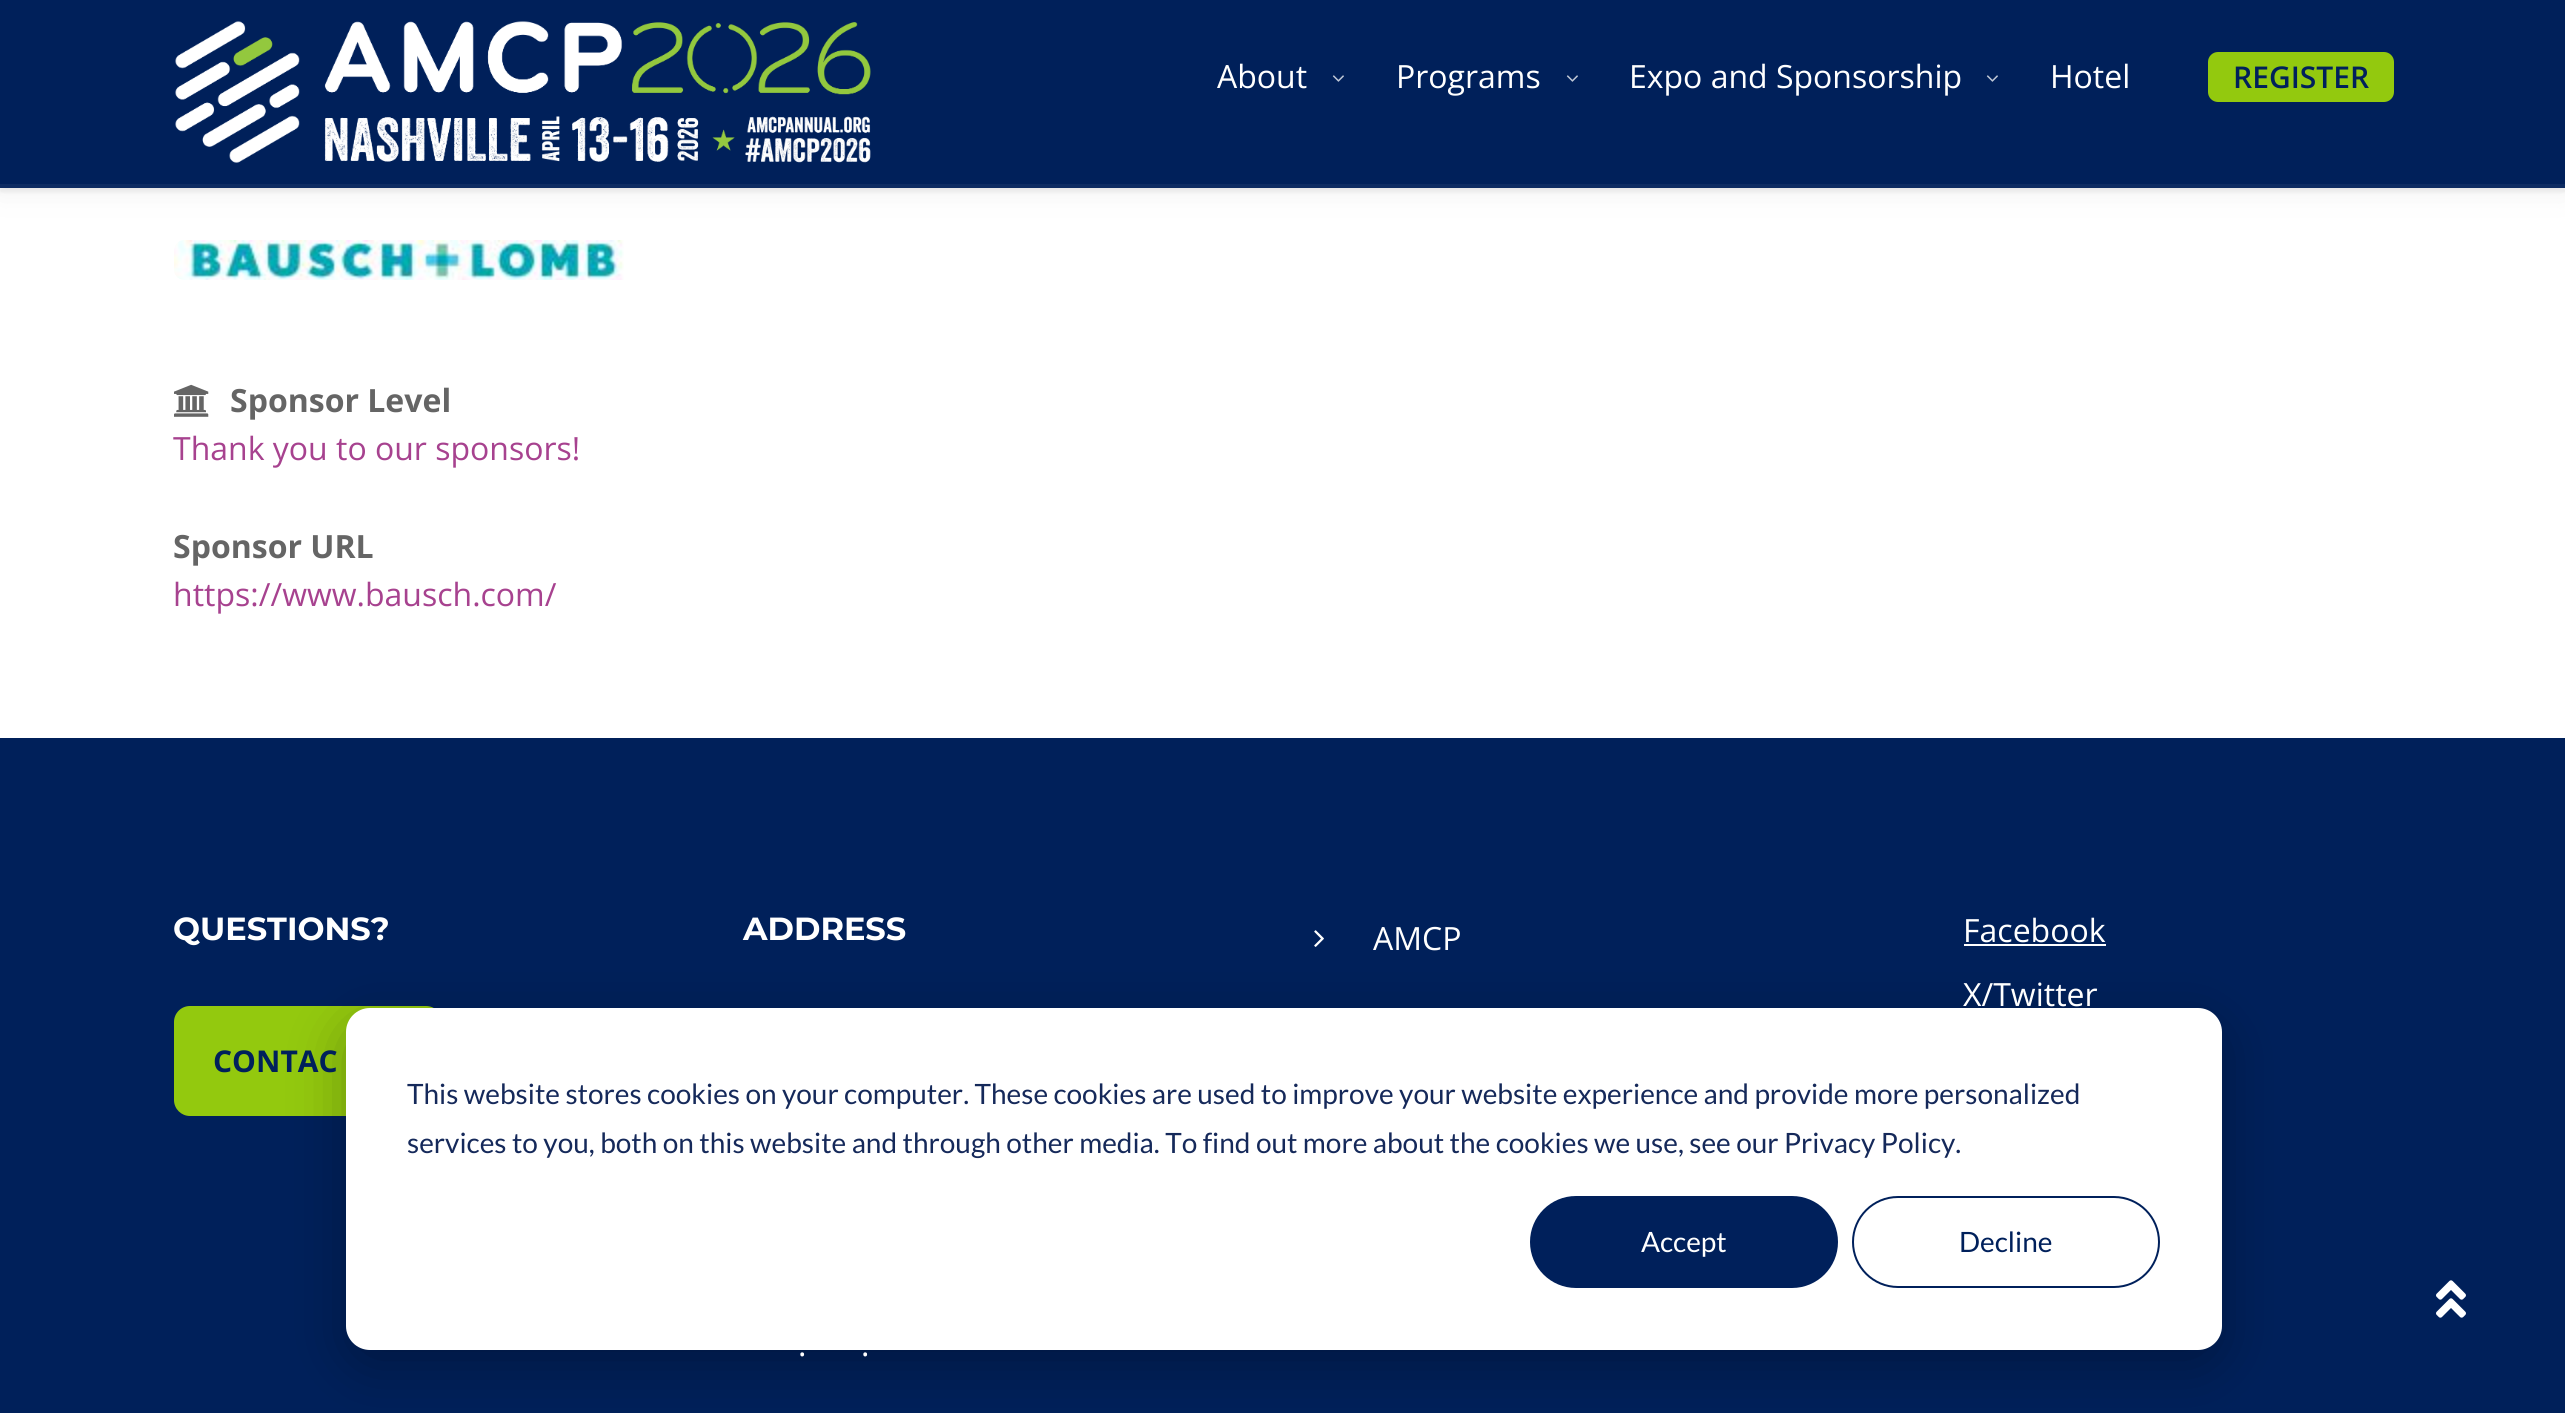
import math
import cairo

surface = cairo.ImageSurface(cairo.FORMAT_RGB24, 2565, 1413)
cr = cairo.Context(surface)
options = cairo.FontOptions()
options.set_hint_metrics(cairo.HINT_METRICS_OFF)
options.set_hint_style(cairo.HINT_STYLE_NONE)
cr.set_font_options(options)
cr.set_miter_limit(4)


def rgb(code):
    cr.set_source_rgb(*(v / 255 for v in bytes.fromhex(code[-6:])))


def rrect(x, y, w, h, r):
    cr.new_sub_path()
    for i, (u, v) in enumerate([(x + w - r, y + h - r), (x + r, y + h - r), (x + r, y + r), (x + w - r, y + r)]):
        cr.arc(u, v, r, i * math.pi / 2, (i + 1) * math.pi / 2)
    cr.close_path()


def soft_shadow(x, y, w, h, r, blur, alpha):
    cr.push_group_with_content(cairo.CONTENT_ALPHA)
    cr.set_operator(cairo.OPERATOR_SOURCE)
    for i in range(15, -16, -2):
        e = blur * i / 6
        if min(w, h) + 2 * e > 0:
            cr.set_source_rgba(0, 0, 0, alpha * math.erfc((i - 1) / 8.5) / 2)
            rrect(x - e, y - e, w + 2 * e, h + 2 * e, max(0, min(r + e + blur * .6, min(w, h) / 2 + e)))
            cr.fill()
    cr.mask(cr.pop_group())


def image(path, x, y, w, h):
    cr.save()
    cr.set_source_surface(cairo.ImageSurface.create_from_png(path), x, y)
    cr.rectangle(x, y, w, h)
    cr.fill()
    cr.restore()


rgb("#ffffff")
cr.paint()
rgb("#646464")
soft_shadow(0, 4, 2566, 188, 0, 2, 0.1)
soft_shadow(0, 4, 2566, 188, 0, 14, 0.1)
rgb("#00205a")
cr.rectangle(0, 0, 2565, 184)
cr.fill()
rgb("#0d2b62")
cr.rectangle(0, 184, 2565, 4)
cr.fill()
image("img/1.png", 175, 21, 696, 142)
image("img/2.png", 1332, 75, 12, 7)
image("img/2.png", 1566, 75, 12, 7)
image("img/2.png", 1986, 75, 12, 7)
rgb("#93c90e")
rrect(2208, 52, 186, 50, 10)
cr.fill()
image("img/3.png", 174, 240, 450, 40)
image("img/4.png", 174, 384, 35, 33)
rgb("#00205a")
cr.rectangle(0, 738, 2565, 675)
cr.fill()
rgb("#93c90e")
rrect(174, 1006, 268, 110, 16)
cr.fill()
image("img/5.png", 1314, 930, 10, 17)
rgb("#ffffff")
cr.rectangle(1964, 944, 142, 2)
cr.fill()
image("img/6.png", 2436, 1280, 30, 38)
rgb("#000000")
soft_shadow(346, 1024, 1876, 342, 24, 28, 0.28)
rgb("#ffffff")
rrect(346, 1008, 1876, 342, 24)
cr.fill()
rgb("#00205b")
rrect(1531, 1197, 306, 90, 45)
cr.fill_preserve()
cr.stroke()
rrect(1853, 1197, 306, 90, 45)
cr.stroke()
cr.select_font_face("Open Sans")
cr.set_font_size(32)
rgb("#ffffff")
for x, y, s in [
    (1217, 88, "About"),
    (1396, 88, "Programs"),
    (1629, 88, "Expo and Sponsorship"),
    (2050, 88, "Hotel"),
]:
    cr.move_to(x, y)
    cr.show_text(s)
cr.select_font_face("Open Sans SemiBold")
cr.set_font_size(30)
rgb("#00205b")
cr.move_to(2233, 88)
cr.show_text("REGISTER")
cr.select_font_face("Open Sans", cairo.FONT_SLANT_NORMAL, cairo.FONT_WEIGHT_BOLD)
cr.set_font_size(32)
rgb("#656565")
cr.move_to(230, 412)
cr.show_text("Sponsor Level")
cr.select_font_face("Open Sans")
rgb("#a7428f")
cr.move_to(173, 460)
cr.show_text("Thank you to our sponsors!")
cr.select_font_face("Open Sans", cairo.FONT_SLANT_NORMAL, cairo.FONT_WEIGHT_BOLD)
rgb("#656565")
cr.move_to(173, 558)
cr.show_text("Sponsor URL")
cr.select_font_face("Open Sans")
rgb("#a7428f")
cr.move_to(173, 606)
cr.show_text("https://www.bausch.com/")
cr.select_font_face("Montserrat", cairo.FONT_SLANT_NORMAL, cairo.FONT_WEIGHT_BOLD)
rgb("#ffffff")
cr.move_to(173, 940)
cr.show_text("QUESTIONS?")
cr.select_font_face("Open Sans", cairo.FONT_SLANT_NORMAL, cairo.FONT_WEIGHT_BOLD)
cr.set_font_size(30)
rgb("#00205b")
cr.move_to(213, 1072)
cr.show_text("CONTAC")
cr.select_font_face("Montserrat", cairo.FONT_SLANT_NORMAL, cairo.FONT_WEIGHT_BOLD)
cr.set_font_size(32)
rgb("#ffffff")
cr.move_to(743, 940)
cr.show_text("ADDRESS")
cr.select_font_face("Open Sans")
for x, y, s in [
    (798, 1356, "."),
    (861, 1356, "."),
    (1373, 950, "AMCP"),
    (1963, 942, "Facebook"),
    (1963, 1006, "X/Twitter"),
]:
    cr.move_to(x, y)
    cr.show_text(s)
cr.select_font_face("Lato")
cr.set_font_size(28)
rgb("#15295a")
cr.move_to(407, 1104)
cr.show_text("This website stores cookies on your computer. These cookies are used to improve your website experience and provide more personalized")
cr.move_to(407, 1153)
cr.show_text("services to you, both on this website and through other media. To find out more about the cookies we use, see our Privacy Policy.")
rgb("#ffffff")
cr.move_to(1641, 1252)
cr.show_text("Accept")
rgb("#00205b")
cr.move_to(1959, 1252)
cr.show_text("Decline")
surface.write_to_png("page.png")
